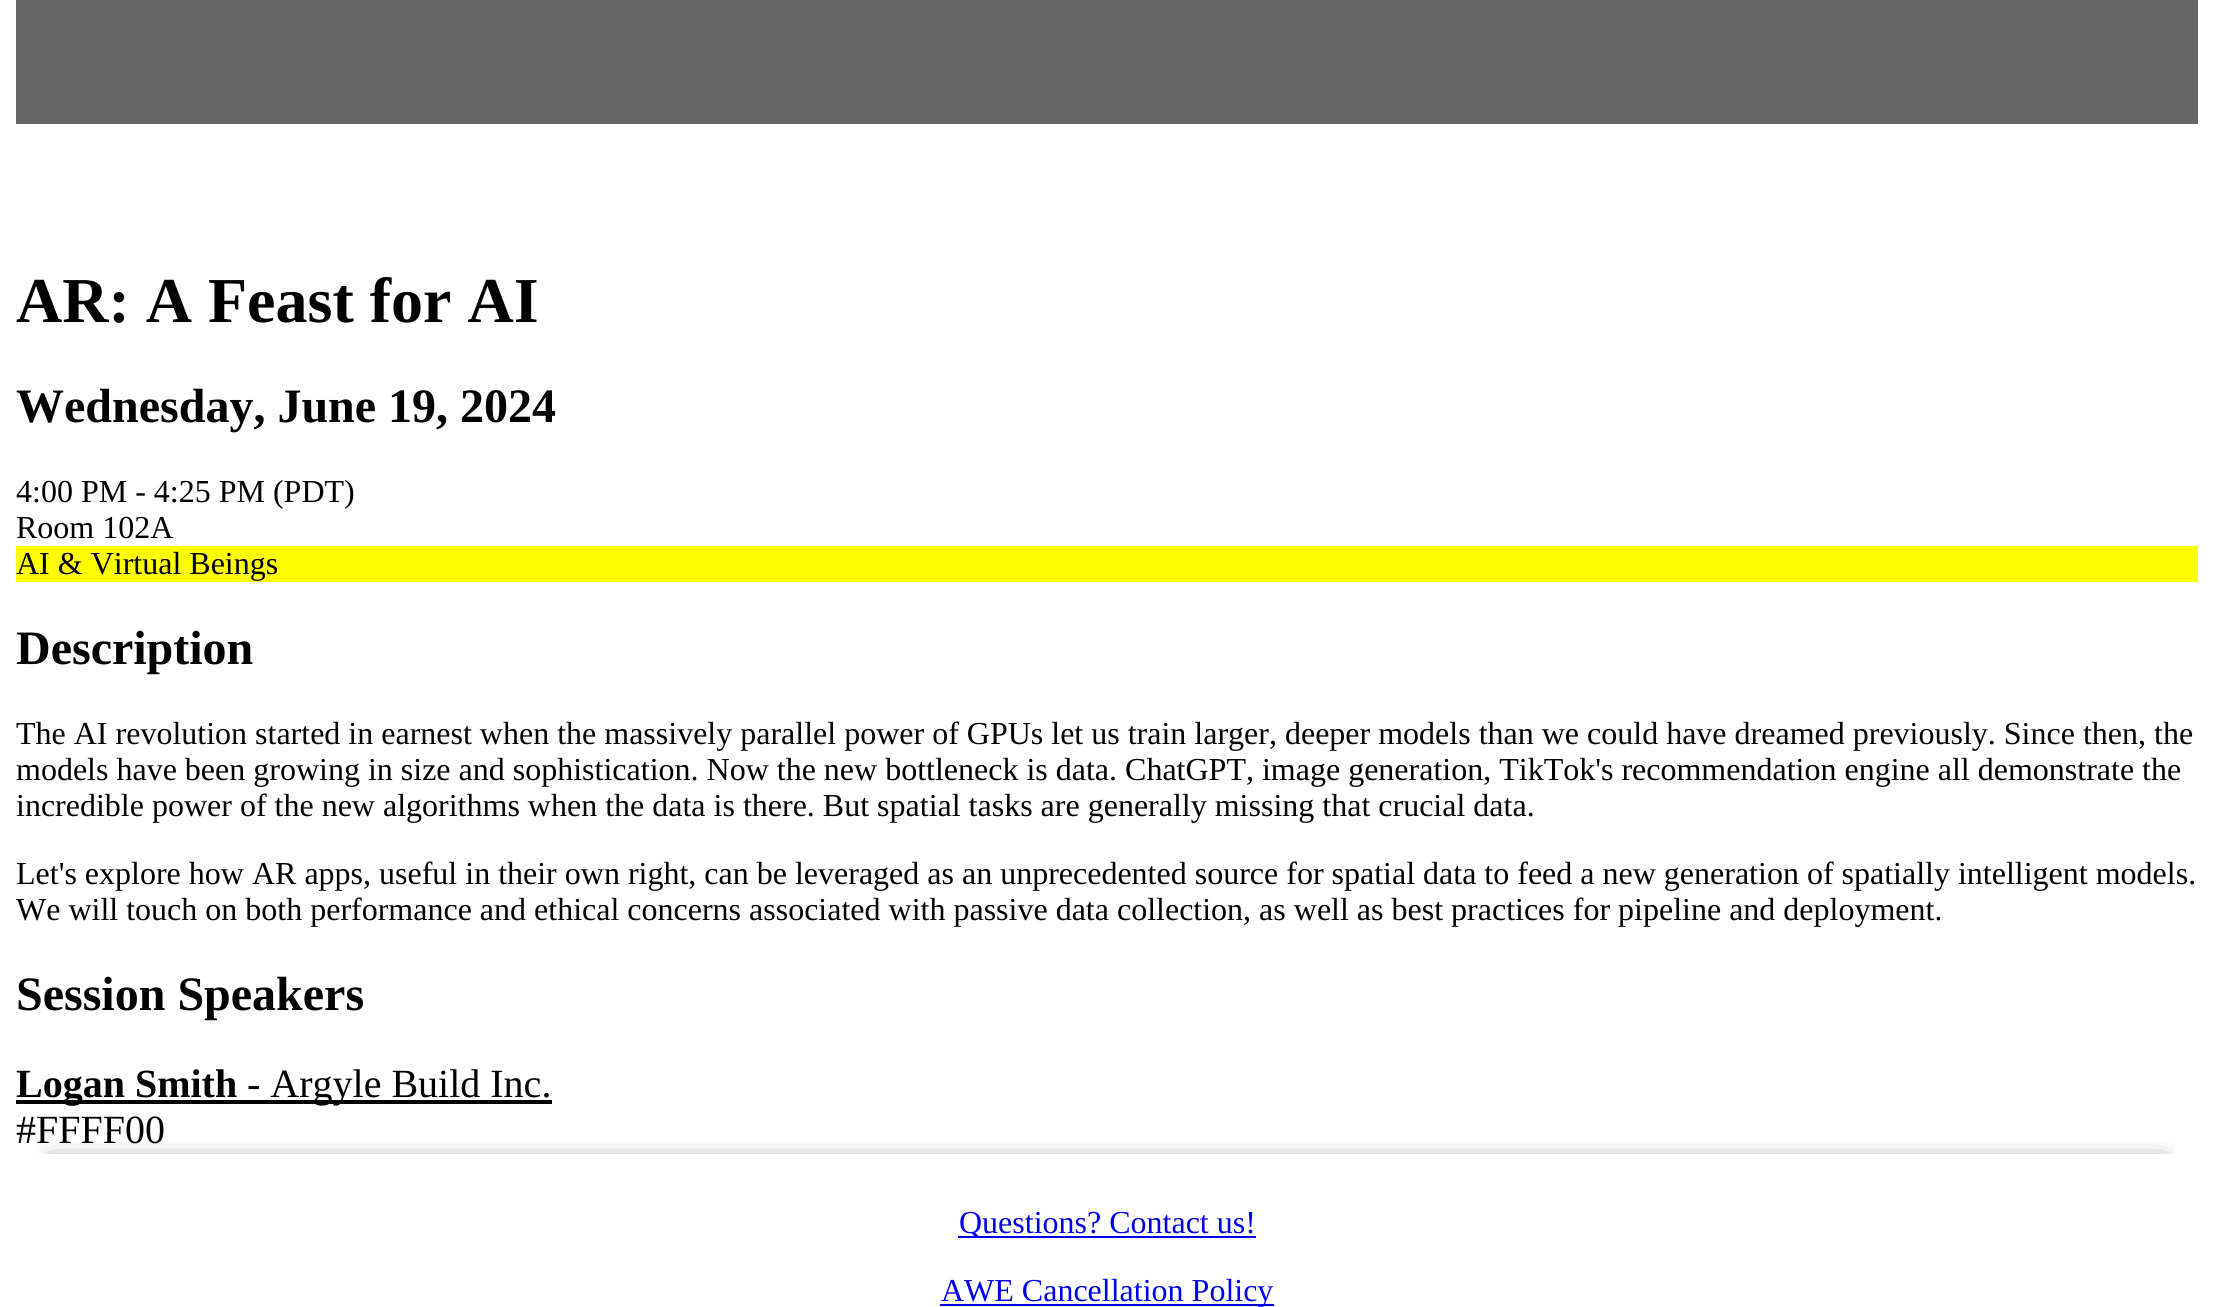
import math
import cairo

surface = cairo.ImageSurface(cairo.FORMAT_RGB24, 2213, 1307)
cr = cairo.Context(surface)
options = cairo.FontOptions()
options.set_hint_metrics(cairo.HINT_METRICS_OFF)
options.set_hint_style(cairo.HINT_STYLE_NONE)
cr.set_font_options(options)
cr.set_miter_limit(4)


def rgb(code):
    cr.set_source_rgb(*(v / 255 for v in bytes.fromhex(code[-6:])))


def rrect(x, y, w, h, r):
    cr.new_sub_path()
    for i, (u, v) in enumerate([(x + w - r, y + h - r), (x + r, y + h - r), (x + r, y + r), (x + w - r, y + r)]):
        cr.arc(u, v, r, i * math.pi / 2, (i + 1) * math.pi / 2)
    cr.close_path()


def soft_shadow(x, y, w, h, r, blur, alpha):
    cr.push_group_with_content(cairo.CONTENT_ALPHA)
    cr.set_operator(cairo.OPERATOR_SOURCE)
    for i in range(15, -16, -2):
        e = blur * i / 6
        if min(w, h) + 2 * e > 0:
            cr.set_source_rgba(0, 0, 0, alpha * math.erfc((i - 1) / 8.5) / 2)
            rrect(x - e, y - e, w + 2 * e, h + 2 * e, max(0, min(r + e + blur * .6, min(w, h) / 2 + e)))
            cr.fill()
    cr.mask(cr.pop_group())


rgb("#ffffff")
cr.paint()
for x, y, w, h, color in [
    (16, 0, 2182, 124, "#666666"),
    (16, 546, 2182, 36, "#ffff00"),
    (16, 1100, 536, 4, "#000000"),
]:
    rgb(color)
    cr.rectangle(x, y, w, h)
    cr.fill()
cr.save()
cr.rectangle(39, 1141, 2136, 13)
cr.clip()
rgb("#000000")
soft_shadow(52, 1168, 2110, 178, 0, 13, 1)
cr.restore()
rgb("#0000ee")
cr.rectangle(958, 1236, 298, 2)
cr.fill()
cr.rectangle(940, 1304, 334, 2)
cr.fill()
cr.select_font_face("Liberation Serif", cairo.FONT_SLANT_NORMAL, cairo.FONT_WEIGHT_BOLD)
cr.set_font_size(64)
rgb("#000000")
cr.move_to(16, 322)
cr.show_text("AR: A Feast for AI")
cr.set_font_size(48)
cr.move_to(16, 422)
cr.show_text("Wednesday, June 19, 2024")
cr.select_font_face("Liberation Serif")
cr.set_font_size(32)
for x, y, s in [
    (16, 502, "4:00 PM - 4:25 PM (PDT)"),
    (16, 538, "Room 102A"),
    (16, 574, "AI & Virtual Beings"),
]:
    cr.move_to(x, y)
    cr.show_text(s)
cr.select_font_face("Liberation Serif", cairo.FONT_SLANT_NORMAL, cairo.FONT_WEIGHT_BOLD)
cr.set_font_size(48)
cr.move_to(16, 664)
cr.show_text("Description")
cr.select_font_face("Liberation Serif")
cr.set_font_size(32)
for x, y, s in [
    (16, 744, "The AI revolution started in earnest when the massively parallel power of GPUs let us train larger, deeper models than we could have dreamed previously. Since then, the"),
    (16, 780, "models have been growing in size and sophistication. Now the new bottleneck is data. ChatGPT, image generation, TikTok's recommendation engine all demonstrate the"),
    (16, 816, "incredible power of the new algorithms when the data is there. But spatial tasks are generally missing that crucial data."),
    (16, 884, "Let's explore how AR apps, useful in their own right, can be leveraged as an unprecedented source for spatial data to feed a new generation of spatially intelligent models."),
    (16, 920, "We will touch on both performance and ethical concerns associated with passive data collection, as well as best practices for pipeline and deployment."),
]:
    cr.move_to(x, y)
    cr.show_text(s)
cr.select_font_face("Liberation Serif", cairo.FONT_SLANT_NORMAL, cairo.FONT_WEIGHT_BOLD)
cr.set_font_size(48)
cr.move_to(16, 1010)
cr.show_text("Session Speakers")
cr.set_font_size(40)
cr.move_to(16, 1097)
cr.show_text("Logan Smith")
cr.select_font_face("Liberation Serif")
cr.move_to(247, 1097)
cr.show_text("- Argyle Build Inc.")
cr.move_to(16, 1143)
cr.show_text("#FFFF00")
cr.set_font_size(32)
rgb("#0000ee")
cr.move_to(959, 1233)
cr.show_text("Questions? Contact us!")
cr.move_to(941, 1301)
cr.show_text("AWE Cancellation Policy")
surface.write_to_png("page.png")
